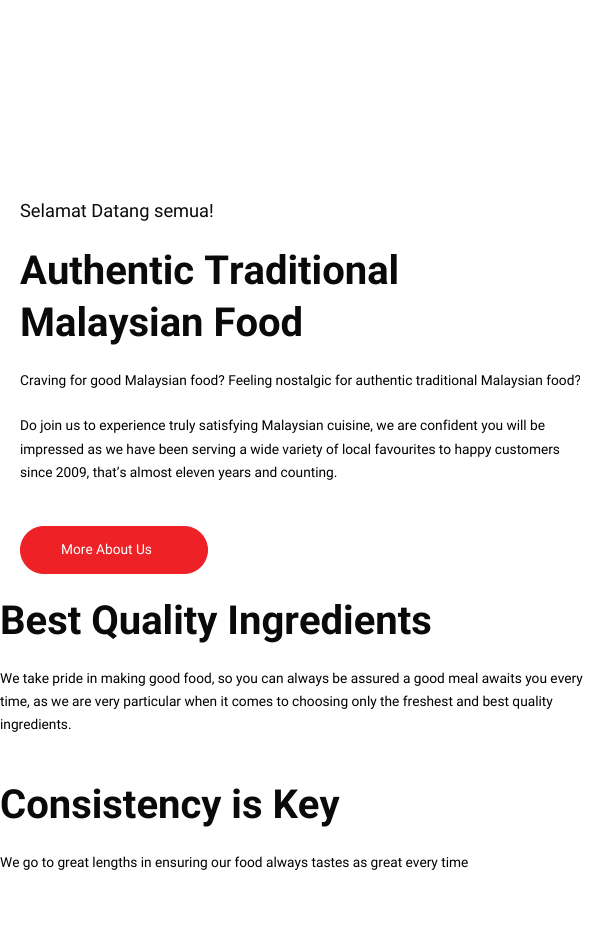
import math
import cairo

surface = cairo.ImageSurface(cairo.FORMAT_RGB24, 605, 933)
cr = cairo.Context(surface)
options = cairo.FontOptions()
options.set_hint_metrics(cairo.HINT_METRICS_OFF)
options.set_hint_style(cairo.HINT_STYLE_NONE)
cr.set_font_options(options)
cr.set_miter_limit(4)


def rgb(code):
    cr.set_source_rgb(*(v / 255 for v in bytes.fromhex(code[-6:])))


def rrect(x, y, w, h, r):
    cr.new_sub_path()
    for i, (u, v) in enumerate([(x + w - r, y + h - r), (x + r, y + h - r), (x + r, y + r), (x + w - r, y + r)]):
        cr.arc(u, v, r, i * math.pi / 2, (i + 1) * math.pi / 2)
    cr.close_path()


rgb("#ffffff")
cr.paint()
rgb("#ed2126")
rrect(20.5, 526.5, 187, 47, 23.5)
cr.fill_preserve()
cr.set_line_width(1)
cr.stroke()
cr.select_font_face("Roboto")
cr.set_font_size(18.25)
rgb("#0a0a0a")
cr.move_to(20, 217)
cr.show_text("Selamat Datang semua!")
cr.select_font_face("Roboto", cairo.FONT_SLANT_NORMAL, cairo.FONT_WEIGHT_BOLD)
cr.set_font_size(40)
cr.move_to(20, 284)
cr.show_text("Authentic Traditional")
cr.move_to(20, 336)
cr.show_text("Malaysian Food")
cr.select_font_face("Roboto")
cr.set_font_size(13.7)
rgb("#000000")
for x, y, s in [
    (20, 385, "Craving for good Malaysian food? Feeling nostalgic for authentic traditional Malaysian food?"),
    (20, 430, "Do join us to experience truly satisfying Malaysian cuisine, we are confident you will be"),
    (20, 454, "impressed as we have been serving a wide variety of local favourites to happy customers"),
    (20, 477, "since 2009, that’s almost eleven years and counting."),
]:
    cr.move_to(x, y)
    cr.show_text(s)
rgb("#ffffff")
cr.move_to(61, 554)
cr.show_text("More About Us")
cr.select_font_face("Roboto", cairo.FONT_SLANT_NORMAL, cairo.FONT_WEIGHT_BOLD)
cr.set_font_size(40)
rgb("#0a0a0a")
cr.move_to(0, 634)
cr.show_text("Best Quality Ingredients")
cr.select_font_face("Roboto")
cr.set_font_size(13.7)
rgb("#000000")
for x, y, s in [
    (0, 683, "We take pride in making good food, so you can always be assured a good meal awaits you every"),
    (0, 706, "time, as we are very particular when it comes to choosing only the freshest and best quality"),
    (0, 729, "ingredients."),
]:
    cr.move_to(x, y)
    cr.show_text(s)
cr.select_font_face("Roboto", cairo.FONT_SLANT_NORMAL, cairo.FONT_WEIGHT_BOLD)
cr.set_font_size(40)
rgb("#0a0a0a")
cr.move_to(0, 818)
cr.show_text("Consistency is Key")
cr.select_font_face("Roboto")
cr.set_font_size(13.7)
rgb("#000000")
cr.move_to(0, 867)
cr.show_text("We go to great lengths in ensuring our food always tastes as great every time")
surface.write_to_png("page.png")
